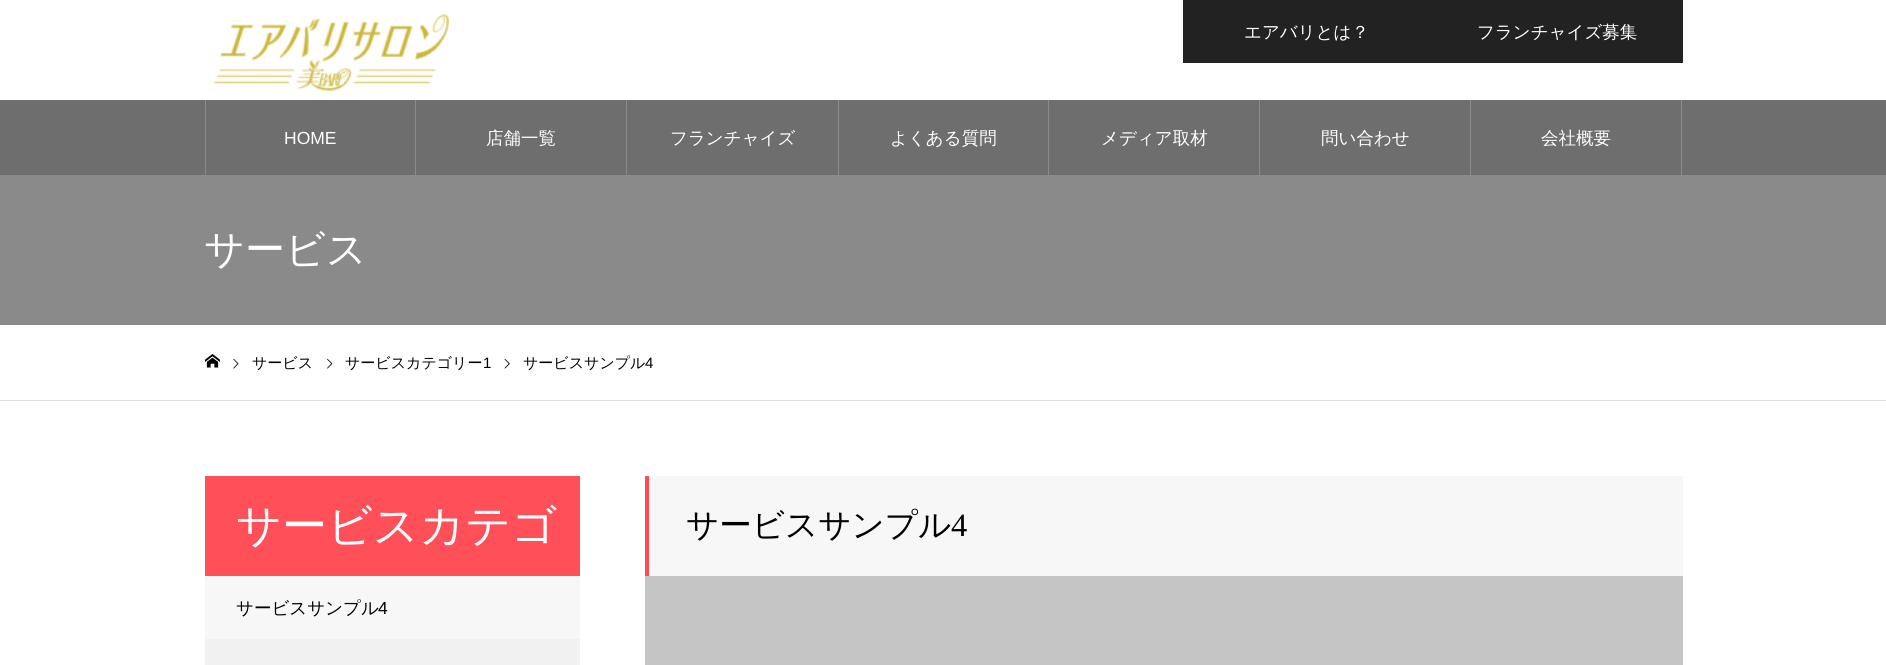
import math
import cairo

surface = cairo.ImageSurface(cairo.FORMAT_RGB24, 1886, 665)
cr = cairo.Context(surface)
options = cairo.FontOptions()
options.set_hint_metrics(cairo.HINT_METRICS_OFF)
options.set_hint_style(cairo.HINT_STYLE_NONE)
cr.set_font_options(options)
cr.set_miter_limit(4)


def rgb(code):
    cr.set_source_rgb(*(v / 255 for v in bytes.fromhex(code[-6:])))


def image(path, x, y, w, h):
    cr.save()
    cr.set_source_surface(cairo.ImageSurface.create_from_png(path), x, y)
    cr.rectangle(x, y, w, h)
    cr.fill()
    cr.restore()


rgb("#ffffff")
cr.paint()
image("img/1.png", 213, 14, 237, 78)
for x, y, w, h, color in [
    (1183, 0, 500, 63, "#222222"),
    (0, 100, 1886, 75, "#6e6e6e"),
    (205, 100, 1, 75, "#8b8b8b"),
    (415, 100, 1, 75, "#8b8b8b"),
    (626, 100, 1, 75, "#8b8b8b"),
    (838, 100, 1, 75, "#8b8b8b"),
    (1048, 100, 1, 75, "#8b8b8b"),
    (1259, 100, 1, 75, "#8b8b8b"),
    (1470, 100, 1, 75, "#8b8b8b"),
    (1681, 100, 1, 75, "#8b8b8b"),
    (0, 175, 1886, 150, "#8a8a8a"),
    (0, 400, 1886, 1, "#dddddd"),
]:
    rgb(color)
    cr.rectangle(x, y, w, h)
    cr.fill()
image("img/2.png", 205, 354, 15, 14)
image("img/3.png", 233, 358, 6, 11)
image("img/4.png", 327, 358, 6, 11)
image("img/5.png", 504, 358, 6, 11)
for x, y, w, h, color in [
    (205, 476, 375, 100, "#ff4f58"),
    (205, 576, 375, 63, "#f7f7f8"),
    (205, 639, 375, 26, "#f1f1f1"),
    (649, 476, 1034, 100, "#f7f7f8"),
    (645, 476, 4, 100, "#ff4b54"),
    (645, 576, 1038, 89, "#c5c5c5"),
]:
    rgb(color)
    cr.rectangle(x, y, w, h)
    cr.fill()
cr.select_font_face("WenQuanYi Zen Hei Medium")
cr.set_font_size(17.5)
rgb("#ffffff")
cr.move_to(1244, 38)
cr.show_text("エアバリとは？")
cr.move_to(1477, 38)
cr.show_text("フランチャイズ募集")
cr.select_font_face("Liberation Sans")
cr.move_to(284, 144)
cr.show_text("HOME")
cr.select_font_face("WenQuanYi Zen Hei Medium")
for x, y, s in [
    (486, 144, "店舗一覧"),
    (670, 144, "フランチャイズ"),
    (890, 144, "よくある質問"),
    (1101, 144, "メディア取材"),
    (1321, 144, "問い合わせ"),
    (1541, 144, "会社概要"),
]:
    cr.move_to(x, y)
    cr.show_text(s)
cr.set_font_size(40)
cr.move_to(204, 263)
cr.show_text("サービス")
cr.set_font_size(15)
rgb("#000000")
cr.move_to(252, 368)
cr.show_text("サービス")
cr.move_to(345, 368)
cr.show_text("サービスカテゴリー")
cr.select_font_face("Liberation Sans")
cr.move_to(483, 368)
cr.show_text("1")
cr.select_font_face("WenQuanYi Zen Hei Medium")
cr.move_to(523, 368)
cr.show_text("サービスサンプル")
cr.select_font_face("Liberation Sans")
cr.move_to(645, 368)
cr.show_text("4")
cr.select_font_face("WenQuanYi Zen Hei Medium")
cr.set_font_size(45)
rgb("#ffffff")
cr.move_to(236, 541)
cr.show_text("サービスカテゴ")
cr.set_font_size(17.5)
rgb("#000000")
cr.move_to(236, 614)
cr.show_text("サービスサンプル")
cr.select_font_face("Liberation Sans")
cr.move_to(378, 614)
cr.show_text("4")
cr.select_font_face("WenQuanYi Zen Hei Medium")
cr.set_font_size(32.5)
cr.move_to(686, 536)
cr.show_text("サービスサンプル")
cr.select_font_face("Liberation Serif")
cr.move_to(951, 536)
cr.show_text("4")
surface.write_to_png("page.png")
